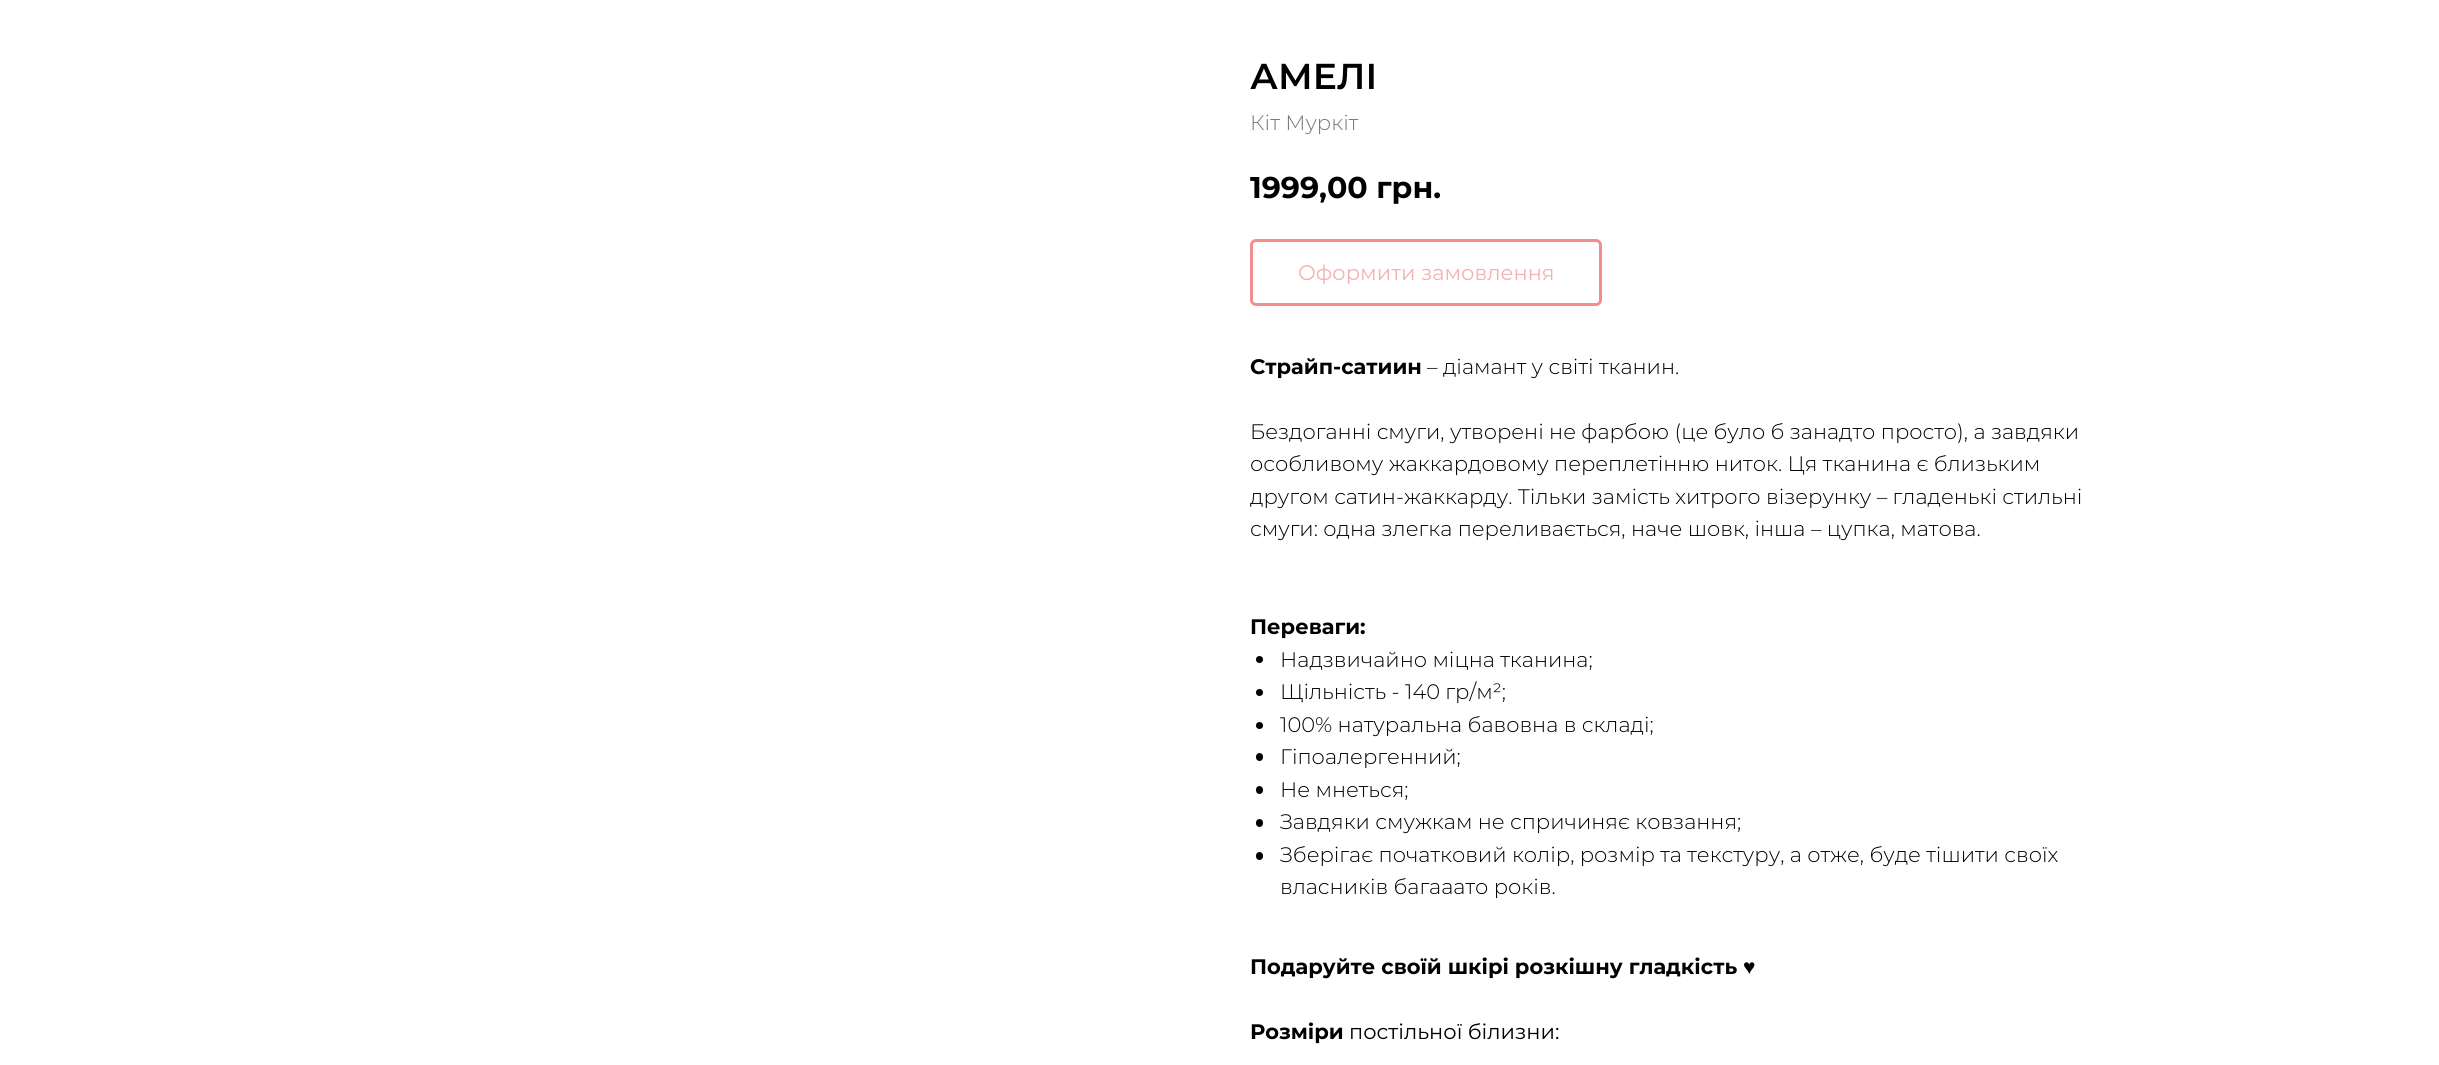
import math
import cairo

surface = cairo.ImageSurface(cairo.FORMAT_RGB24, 2439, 1065)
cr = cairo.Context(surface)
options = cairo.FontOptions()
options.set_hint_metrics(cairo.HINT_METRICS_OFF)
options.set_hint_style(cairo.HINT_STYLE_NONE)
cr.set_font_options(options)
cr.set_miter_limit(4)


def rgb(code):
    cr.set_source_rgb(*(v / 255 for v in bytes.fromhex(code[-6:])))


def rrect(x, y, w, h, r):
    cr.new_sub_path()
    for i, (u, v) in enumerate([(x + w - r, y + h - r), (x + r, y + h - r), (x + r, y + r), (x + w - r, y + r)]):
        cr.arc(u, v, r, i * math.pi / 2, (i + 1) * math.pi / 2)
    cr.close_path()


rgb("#ffffff")
cr.paint()
rrect(1251.5, 240.5, 349, 64, 4.5)
rgb("#f38e8e")
cr.set_line_width(3)
cr.stroke()
rgb("#000000")
cr.arc(1259.5, 659.5, 3.5, 0, 2 * math.pi)
cr.fill()
cr.arc(1259.5, 692.5, 3.5, 0, 2 * math.pi)
cr.fill()
cr.arc(1259.5, 725.5, 3.5, 0, 2 * math.pi)
cr.fill()
rrect(1256, 753, 7, 8, 3.5)
cr.fill()
rrect(1256, 786, 7, 8, 3.5)
cr.fill()
rrect(1256, 819, 7, 8, 3.5)
cr.fill()
rrect(1256, 852, 7, 8, 3.5)
cr.fill()
cr.select_font_face("Montserrat SemiBold")
cr.set_font_size(36)
cr.move_to(1250, 89)
cr.show_text("АМЕЛІ")
cr.select_font_face("Montserrat Light")
cr.set_font_size(21)
rgb("#777777")
cr.move_to(1250, 130)
cr.show_text("Кіт Муркіт")
cr.select_font_face("Montserrat", cairo.FONT_SLANT_NORMAL, cairo.FONT_WEIGHT_BOLD)
cr.set_font_size(30)
rgb("#000000")
cr.move_to(1250, 198)
cr.show_text("1999,00 грн.")
cr.select_font_face("Montserrat")
cr.set_font_size(21)
rgb("#f6b0b0")
cr.move_to(1298, 280)
cr.show_text("Оформити замовлення")
cr.select_font_face("Montserrat", cairo.FONT_SLANT_NORMAL, cairo.FONT_WEIGHT_BOLD)
rgb("#000000")
cr.move_to(1250, 374)
cr.show_text("Страйп-сатиин")
cr.select_font_face("Montserrat Light")
for x, y, s in [
    (1427, 374, "– діамант у світі тканин."),
    (1250, 439, "Бездоганні смуги, утворені не фарбою (це було б занадто просто), а завдяки"),
    (1250, 471, "особливому жаккардовому переплетінню ниток. Ця тканина є близьким"),
    (1250, 504, "другом сатин-жаккарду. Тільки замість хитрого візерунку – гладенькі стильні"),
    (1250, 536, "смуги: одна злегка переливається, наче шовк, інша – цупка, матова."),
]:
    cr.move_to(x, y)
    cr.show_text(s)
cr.select_font_face("Montserrat", cairo.FONT_SLANT_NORMAL, cairo.FONT_WEIGHT_BOLD)
cr.move_to(1250, 634)
cr.show_text("Переваги:")
cr.select_font_face("Montserrat Light")
for x, y, s in [
    (1280, 667, "Надзвичайно міцна тканина;"),
    (1280, 699, "Щільність - 140 гр/м²;"),
    (1280, 732, "100% натуральна бавовна в складі;"),
    (1280, 764, "Гіпоалергенний;"),
    (1280, 797, "Не мнеться;"),
    (1280, 829, "Завдяки смужкам не спричиняє ковзання;"),
    (1280, 862, "Зберігає початковий колір, розмір та текстуру, а отже, буде тішити своїх"),
    (1280, 894, "власників багааато років."),
]:
    cr.move_to(x, y)
    cr.show_text(s)
cr.select_font_face("Montserrat", cairo.FONT_SLANT_NORMAL, cairo.FONT_WEIGHT_BOLD)
cr.move_to(1250, 974)
cr.show_text("Подаруйте своїй шкірі розкішну гладкість")
cr.select_font_face("Liberation Sans", cairo.FONT_SLANT_NORMAL, cairo.FONT_WEIGHT_BOLD)
cr.move_to(1743, 974)
cr.show_text("♥")
cr.select_font_face("Montserrat", cairo.FONT_SLANT_NORMAL, cairo.FONT_WEIGHT_BOLD)
cr.move_to(1250, 1039)
cr.show_text("Розміри")
cr.select_font_face("Montserrat")
cr.move_to(1349, 1039)
cr.show_text("постільної білизни:")
surface.write_to_png("page.png")
